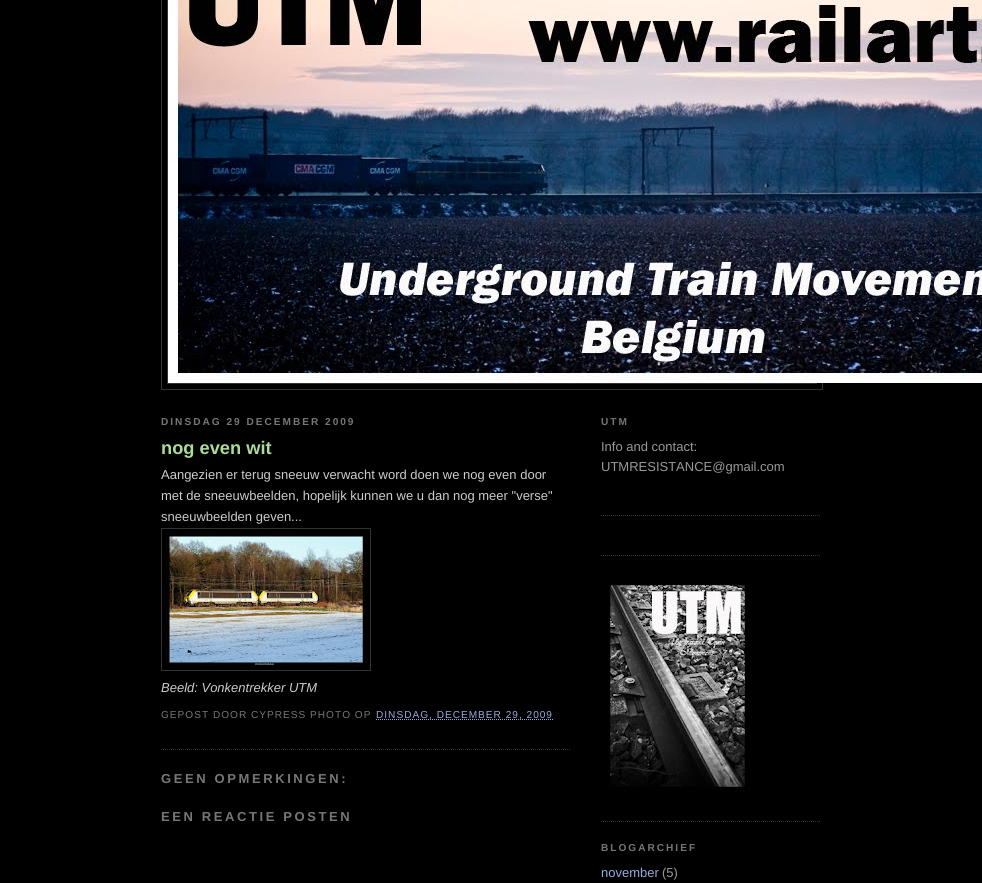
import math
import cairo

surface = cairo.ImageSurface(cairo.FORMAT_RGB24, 982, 883)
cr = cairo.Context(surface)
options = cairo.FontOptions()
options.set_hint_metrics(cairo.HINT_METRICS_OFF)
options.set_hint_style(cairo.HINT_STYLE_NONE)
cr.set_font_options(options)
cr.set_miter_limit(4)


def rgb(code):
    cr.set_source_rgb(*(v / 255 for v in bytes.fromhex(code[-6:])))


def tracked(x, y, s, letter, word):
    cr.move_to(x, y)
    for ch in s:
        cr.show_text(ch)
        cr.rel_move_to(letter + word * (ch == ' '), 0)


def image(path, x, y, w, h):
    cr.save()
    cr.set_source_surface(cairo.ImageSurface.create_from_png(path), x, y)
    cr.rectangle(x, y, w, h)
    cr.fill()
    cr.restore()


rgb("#000000")
cr.paint()
cr.rectangle(161.5, -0.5, 661, 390)
rgb("#333333")
cr.set_line_width(1)
cr.stroke()
cr.rectangle(167.5, -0.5, 649, 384)
cr.stroke()
image("img/1.png", 168, 0, 814, 383)
cr.new_path()
cr.move_to(161, 749.5)
cr.line_to(571, 749.5)
cr.set_dash([1, 1])
cr.stroke()
cr.rectangle(161.5, 528.5, 209, 142)
cr.set_dash([])
cr.stroke()
image("img/2.png", 166, 533, 200, 133)
cr.new_path()
cr.move_to(376, 719.5)
cr.line_to(554, 719.5)
rgb("#99aadd")
cr.set_dash([1, 1])
cr.stroke()
cr.new_path()
cr.move_to(601, 515.5)
cr.line_to(821, 515.5)
rgb("#333333")
cr.stroke()
cr.new_path()
cr.move_to(601, 555.5)
cr.line_to(821, 555.5)
cr.stroke()
cr.new_path()
cr.move_to(601, 821.5)
cr.line_to(821, 821.5)
cr.stroke()
image("img/3.png", 609, 584, 136, 208)
cr.select_font_face("Liberation Sans", cairo.FONT_SLANT_NORMAL, cairo.FONT_WEIGHT_BOLD)
cr.set_font_size(10.1)
rgb("#777777")
tracked(161, 425, "DINSDAG 29 DECEMBER 2009", 2, 0)
cr.set_font_size(18.25)
rgb("#aadd99")
cr.move_to(161, 454)
cr.show_text("nog even wit")
cr.select_font_face("Liberation Sans")
cr.set_font_size(13)
rgb("#cccccc")
for x, y, s in [
    (161, 479, "Aangezien er terug sneeuw verwacht word doen we nog even door"),
    (161, 500, "met de sneeuwbeelden, hopelijk kunnen we u dan nog meer \"verse\""),
    (161, 521, "sneeuwbeelden geven..."),
]:
    cr.move_to(x, y)
    cr.show_text(s)
cr.select_font_face("Liberation Sans", cairo.FONT_SLANT_ITALIC)
cr.move_to(161, 692)
cr.show_text("Beeld: Vonkentrekker UTM")
cr.select_font_face("Liberation Sans")
cr.set_font_size(10.1)
rgb("#777777")
tracked(161, 718, "GEPOST DOOR CYPRESS PHOTO OP", 1, 0)
rgb("#99aadd")
tracked(376, 718, "DINSDAG, DECEMBER 29, 2009", 1, 0)
cr.select_font_face("Liberation Sans", cairo.FONT_SLANT_NORMAL, cairo.FONT_WEIGHT_BOLD)
cr.set_font_size(13)
rgb("#777777")
tracked(161, 783, "GEEN OPMERKINGEN:", 2.6, 0)
tracked(161, 821, "EEN REACTIE POSTEN", 2.6, 0)
cr.set_font_size(10.1)
tracked(601, 425, "UTM", 2, 0)
cr.select_font_face("Liberation Sans")
cr.set_font_size(13)
rgb("#999999")
cr.move_to(601, 451)
cr.show_text("Info and contact:")
cr.move_to(601, 471)
cr.show_text("UTMRESISTANCE@gmail.com")
cr.select_font_face("Liberation Sans", cairo.FONT_SLANT_NORMAL, cairo.FONT_WEIGHT_BOLD)
cr.set_font_size(10.1)
rgb("#777777")
tracked(601, 851, "BLOGARCHIEF", 2, 0)
cr.select_font_face("Liberation Sans")
cr.set_font_size(13)
rgb("#99aadd")
cr.move_to(601, 877)
cr.show_text("november")
rgb("#999999")
cr.move_to(662, 877)
cr.show_text("(5)")
surface.write_to_png("page.png")
